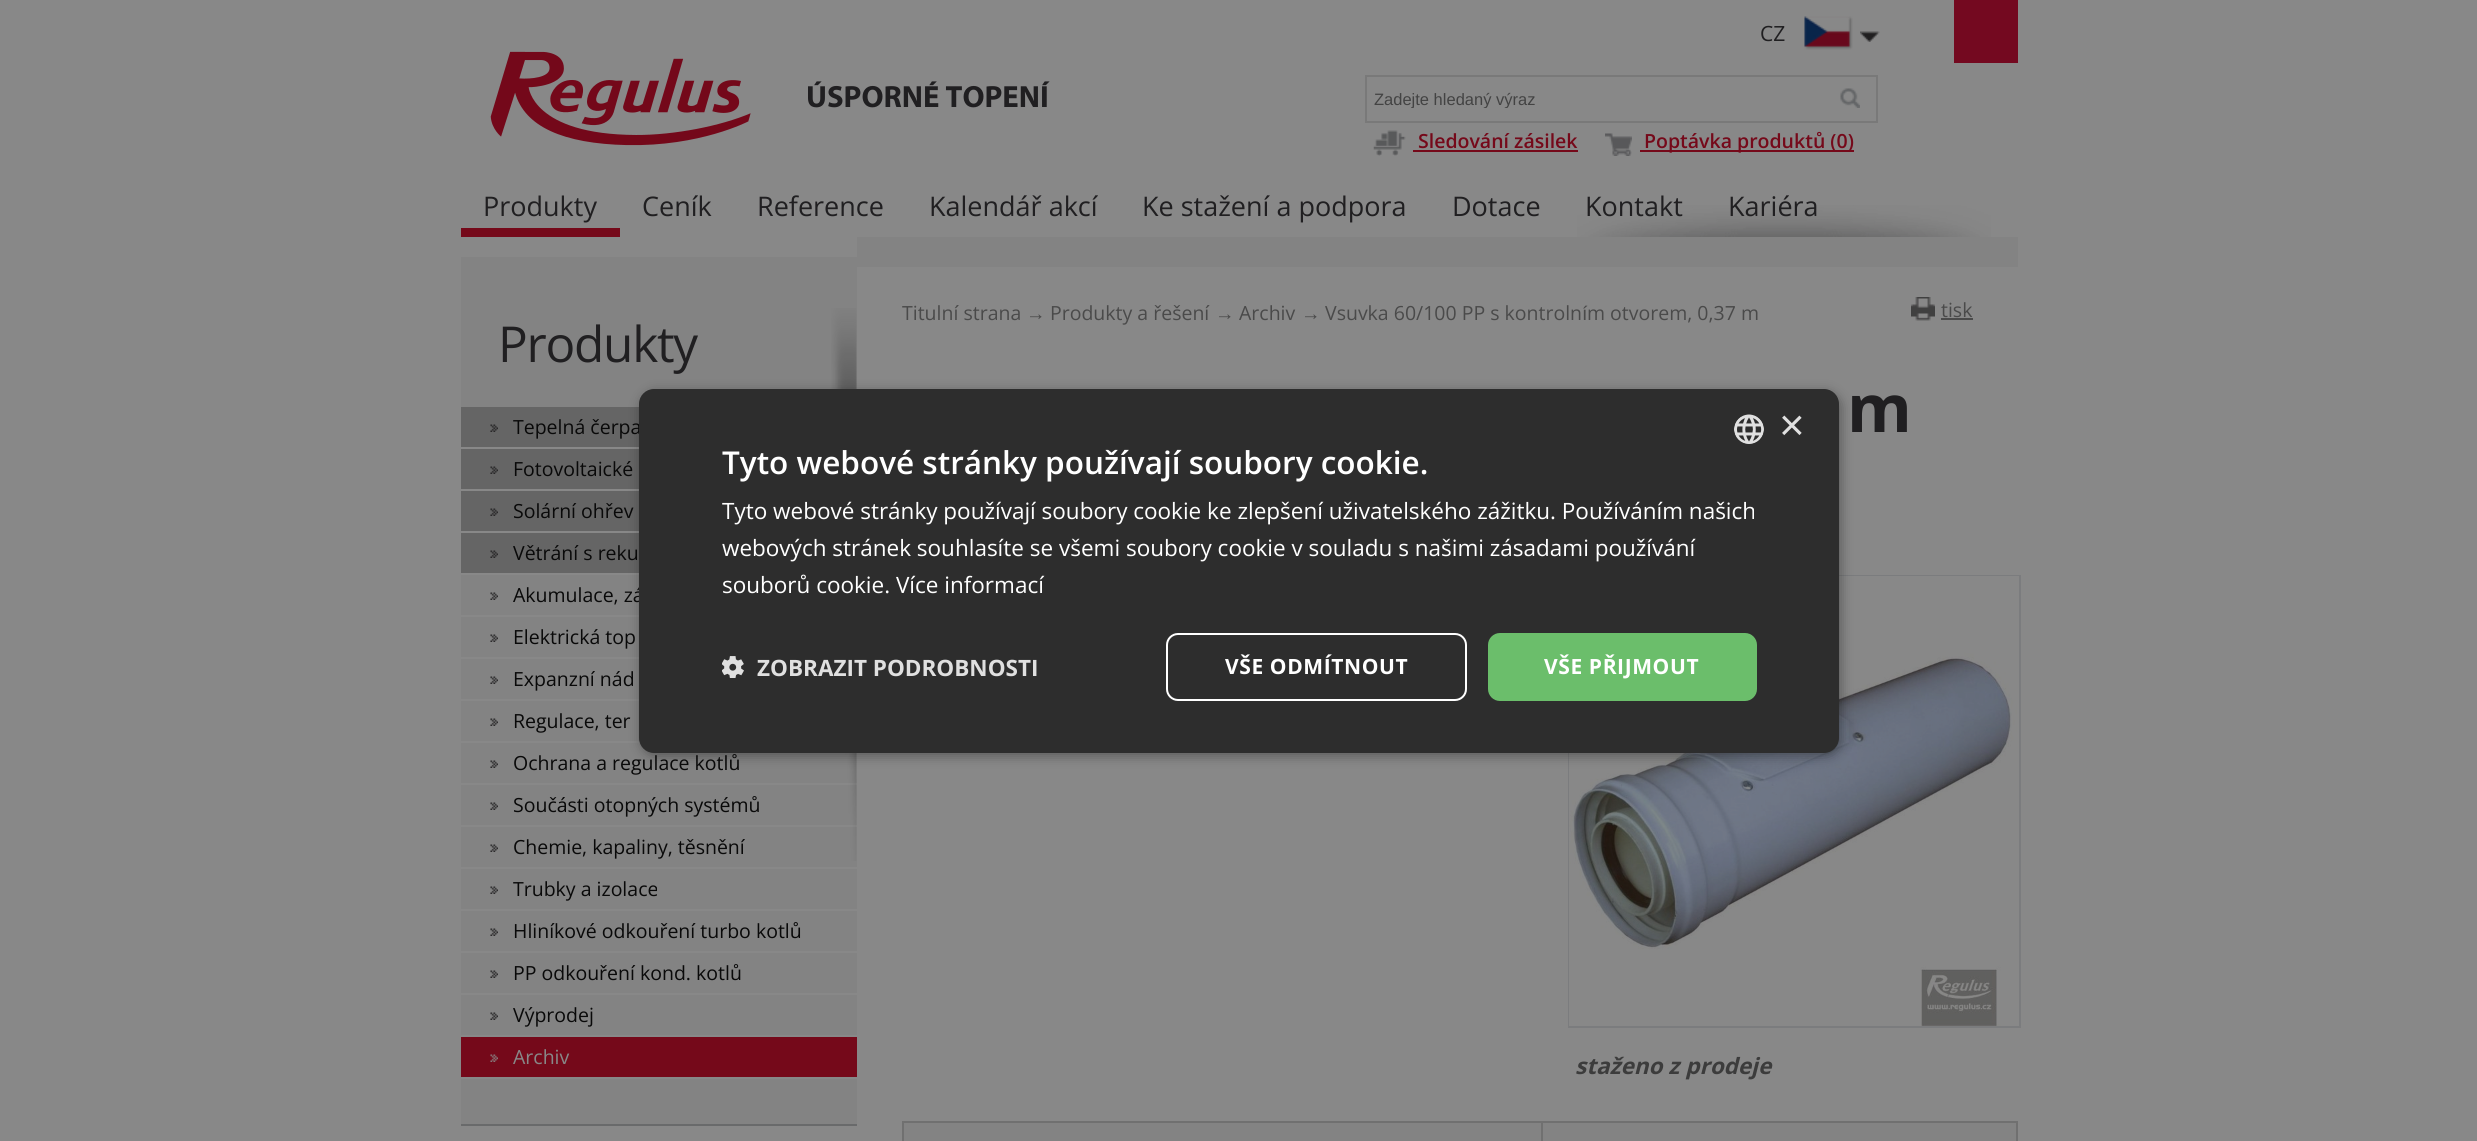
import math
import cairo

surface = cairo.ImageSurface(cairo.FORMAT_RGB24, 2477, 1141)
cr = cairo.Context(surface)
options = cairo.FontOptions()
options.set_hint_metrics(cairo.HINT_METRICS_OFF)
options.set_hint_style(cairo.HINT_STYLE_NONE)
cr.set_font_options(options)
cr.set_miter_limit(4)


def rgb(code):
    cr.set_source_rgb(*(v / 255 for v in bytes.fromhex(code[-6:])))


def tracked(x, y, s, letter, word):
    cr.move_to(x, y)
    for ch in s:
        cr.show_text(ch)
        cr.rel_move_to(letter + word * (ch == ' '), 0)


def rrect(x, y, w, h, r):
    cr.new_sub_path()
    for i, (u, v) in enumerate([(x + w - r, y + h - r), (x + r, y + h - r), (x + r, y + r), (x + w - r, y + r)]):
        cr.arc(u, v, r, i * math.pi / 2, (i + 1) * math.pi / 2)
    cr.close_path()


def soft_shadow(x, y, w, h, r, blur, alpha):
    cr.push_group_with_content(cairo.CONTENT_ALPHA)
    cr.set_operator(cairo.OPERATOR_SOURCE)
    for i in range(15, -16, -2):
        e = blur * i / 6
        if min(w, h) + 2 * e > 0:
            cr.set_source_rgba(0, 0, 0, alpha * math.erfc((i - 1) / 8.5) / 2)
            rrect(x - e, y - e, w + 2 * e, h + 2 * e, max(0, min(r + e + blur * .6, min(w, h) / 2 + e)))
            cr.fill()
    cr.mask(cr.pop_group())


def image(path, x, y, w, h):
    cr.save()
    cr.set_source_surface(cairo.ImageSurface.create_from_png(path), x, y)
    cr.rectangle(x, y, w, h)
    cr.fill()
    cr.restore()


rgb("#888888")
cr.paint()
image("img/1.png", 1577, 205, 414, 32)
rgb("#740920")
cr.rectangle(1954, 0, 64, 63)
cr.fill()
image("img/2.png", 1860, 31, 20, 11)
image("img/3.png", 1804, 16, 49, 34)
image("img/4.png", 490, 51, 261, 95)
cr.rectangle(1366, 76, 511, 46)
rgb("#797979")
cr.stroke()
image("img/5.png", 1840, 88, 20, 20)
image("img/6.png", 1373, 130, 33, 26)
rgb("#75091a")
cr.rectangle(1413, 150, 165, 2)
cr.fill()
image("img/7.png", 1605, 133, 27, 23)
for x, y, w, h, color in [
    (1640, 150, 214, 2, "#75091a"),
    (461, 228, 159, 9, "#75091a"),
    (461, 257, 396, 867, "#838383"),
    (461, 1124, 396, 2, "#696a6b"),
    (461, 407, 178, 40, "#656565"),
]:
    rgb(color)
    cr.rectangle(x, y, w, h)
    cr.fill()
image("img/8.png", 490, 424, 8, 8)
rgb("#888888")
cr.rectangle(461, 447, 178, 2)
cr.fill()
rgb("#656565")
cr.rectangle(461, 449, 178, 40)
cr.fill()
image("img/8.png", 490, 466, 8, 8)
rgb("#888888")
cr.rectangle(461, 489, 178, 2)
cr.fill()
rgb("#656565")
cr.rectangle(461, 491, 178, 40)
cr.fill()
image("img/8.png", 490, 508, 8, 8)
rgb("#888888")
cr.rectangle(461, 531, 178, 2)
cr.fill()
rgb("#656565")
cr.rectangle(461, 533, 178, 40)
cr.fill()
image("img/8.png", 490, 550, 8, 8)
rgb("#888888")
cr.rectangle(461, 573, 178, 2)
cr.fill()
image("img/9.png", 490, 592, 8, 8)
cr.rectangle(461, 615, 178, 2)
cr.fill()
image("img/9.png", 490, 634, 8, 8)
cr.rectangle(461, 657, 178, 2)
cr.fill()
image("img/9.png", 490, 676, 8, 8)
cr.rectangle(461, 699, 178, 2)
cr.fill()
image("img/9.png", 490, 718, 8, 8)
cr.rectangle(461, 741, 179, 2)
cr.fill()
image("img/9.png", 490, 760, 8, 8)
cr.rectangle(461, 783, 396, 2)
cr.fill()
image("img/9.png", 490, 802, 8, 8)
cr.rectangle(461, 825, 396, 2)
cr.fill()
image("img/9.png", 490, 844, 8, 8)
cr.rectangle(461, 867, 396, 2)
cr.fill()
image("img/9.png", 490, 886, 8, 8)
cr.rectangle(461, 909, 396, 2)
cr.fill()
image("img/9.png", 490, 928, 8, 8)
cr.rectangle(461, 951, 396, 2)
cr.fill()
image("img/9.png", 490, 970, 8, 8)
cr.rectangle(461, 993, 396, 2)
cr.fill()
image("img/9.png", 490, 1012, 8, 8)
cr.rectangle(461, 1035, 396, 2)
cr.fill()
rgb("#75091a")
cr.rectangle(461, 1037, 396, 40)
cr.fill()
image("img/10.png", 490, 1054, 8, 8)
rgb("#888888")
cr.rectangle(461, 1077, 396, 2)
cr.fill()
image("img/11.png", 831, 308, 26, 553)
rgb("#838383")
cr.rectangle(857, 237, 1161, 30)
cr.fill()
image("img/12.png", 1911, 297, 24, 24)
rgb("#4a4a4a")
cr.rectangle(1941, 318, 32, 2)
cr.fill()
cr.rectangle(1569, 576, 451, 451)
rgb("#7b7c7e")
cr.stroke()
image("img/13.png", 1569, 576, 450, 450)
for x, y, w, h, color in [
    (904, 1123, 637, 18, "#838383"),
    (1541, 1121, 477, 2, "#707070"),
    (1541, 1121, 2, 20, "#707070"),
    (902, 1121, 640, 2, "#707070"),
    (902, 1121, 2, 20, "#707070"),
    (1543, 1123, 473, 18, "#838383"),
    (2016, 1121, 2, 20, "#707070"),
]:
    rgb(color)
    cr.rectangle(x, y, w, h)
    cr.fill()
rgb("#000000")
soft_shadow(641, 392, 1200, 364, 15, 6, 0.35)
cr.select_font_face("Open Sans")
cr.set_font_size(21)
rgb("#201f21")
cr.move_to(1760, 41)
cr.show_text("CZ")
cr.select_font_face("Myriad", cairo.FONT_SLANT_NORMAL, cairo.FONT_WEIGHT_BOLD)
cr.set_font_size(30.75)
cr.move_to(806, 107)
cr.show_text("ÚSPORNÉ TOPENÍ")
cr.save()
cr.rectangle(1374, 90, 495, 18)
cr.clip()
cr.select_font_face("Liberation Sans")
cr.set_font_size(16.5)
rgb("#434343")
cr.move_to(1374, 105)
cr.show_text("Zadejte hledaný výraz")
cr.restore()
cr.select_font_face("Open Sans SemiBold")
cr.set_font_size(19.5)
rgb("#75091a")
cr.move_to(1418, 148)
cr.show_text("Sledování zásilek")
cr.move_to(1644, 148)
cr.show_text("Poptávka produktů (0)")
cr.select_font_face("Open Sans")
cr.set_font_size(27)
rgb("#201f21")
for x, y, s in [
    (483, 216, "Produkty"),
    (642, 216, "Ceník"),
    (757, 216, "Reference"),
    (929, 216, "Kalendář akcí"),
    (1142, 216, "Ke stažení a podpora"),
    (1452, 216, "Dotace"),
    (1585, 216, "Kontakt"),
    (1728, 216, "Kariéra"),
]:
    cr.move_to(x, y)
    cr.show_text(s)
cr.set_font_size(49.5)
tracked(498, 362, "Produkty", -1.25, 0)
cr.set_font_size(19.5)
rgb("#090909")
for x, y, s in [
    (513, 434, "Tepelná čerpa"),
    (513, 476, "Fotovoltaické"),
    (513, 518, "Solární ohřev"),
    (513, 560, "Větrání s reku"),
    (513, 602, "Akumulace, zá"),
    (513, 644, "Elektrická top"),
    (513, 686, "Expanzní nád"),
    (513, 728, "Regulace, ter"),
    (513, 770, "Ochrana a regulace kotlů"),
    (513, 812, "Součásti otopných systémů"),
    (513, 854, "Chemie, kapaliny, těsnění"),
    (513, 896, "Trubky a izolace"),
    (513, 938, "Hliníkové odkouření turbo kotlů"),
    (513, 980, "PP odkouření kond. kotlů"),
    (513, 1022, "Výprodej"),
]:
    cr.move_to(x, y)
    cr.show_text(s)
rgb("#888888")
cr.move_to(513, 1064)
cr.show_text("Archiv")
rgb("#4a4a4a")
cr.move_to(902, 320)
cr.show_text("Titulní strana")
cr.select_font_face("Liberation Sans")
cr.move_to(1026, 320)
cr.show_text("→")
cr.select_font_face("Open Sans")
cr.move_to(1050, 320)
cr.show_text("Produkty a řešení")
cr.select_font_face("Liberation Sans")
cr.move_to(1215, 320)
cr.show_text("→")
cr.select_font_face("Open Sans")
cr.move_to(1239, 320)
cr.show_text("Archiv")
cr.select_font_face("Liberation Sans")
cr.move_to(1301, 320)
cr.show_text("→")
cr.select_font_face("Open Sans")
cr.move_to(1325, 320)
cr.show_text("Vsuvka 60/100 PP s kontroln")
cr.select_font_face("Liberation Sans")
cr.move_to(1582, 320)
cr.show_text("í")
cr.select_font_face("Open Sans")
cr.move_to(1587, 320)
cr.show_text("m otvorem, 0,37 m")
cr.move_to(1941, 317)
cr.show_text("tisk")
cr.select_font_face("Open Sans", cairo.FONT_SLANT_NORMAL, cairo.FONT_WEIGHT_BOLD)
cr.set_font_size(66)
rgb("#201f21")
cr.move_to(1847, 432)
cr.show_text("m")
cr.select_font_face("Open Sans", cairo.FONT_SLANT_ITALIC, cairo.FONT_WEIGHT_BOLD)
cr.set_font_size(22.5)
rgb("#3c3c3c")
cr.move_to(1575, 1074)
cr.show_text("staženo z prodeje")
rgb("#2d2d2d")
rrect(639, 389, 1200, 364, 15)
cr.fill()
image("img/14.png", 1734, 414, 30, 30)
cr.select_font_face("Liberation Sans")
cr.set_font_size(44)
rgb("#e0e0e0")
cr.move_to(1779, 440)
cr.show_text("×")
cr.select_font_face("Open Sans SemiBold")
cr.set_font_size(31.5)
rgb("#ffffff")
cr.move_to(722, 474)
cr.show_text("Tyto webové stránky používají soubory cookie.")
cr.select_font_face("Open Sans")
cr.set_font_size(22.5)
for x, y, s in [
    (722, 519, "Tyto webové stránky používají soubory cookie ke zlepšení uživatelského zážitku. Používáním našich"),
    (722, 556, "webových stránek souhlasíte se všemi soubory cookie v souladu s našimi zásadami používání"),
    (722, 593, "souborů cookie. Více informací"),
]:
    cr.move_to(x, y)
    cr.show_text(s)
image("img/15.png", 722, 656, 22, 22)
cr.select_font_face("Open Sans", cairo.FONT_SLANT_NORMAL, cairo.FONT_WEIGHT_BOLD)
rgb("#e0e0e0")
cr.move_to(757, 676)
cr.show_text("ZOBRAZIT PODROBNOSTI")
rrect(1167, 634, 299, 66, 11)
rgb("#ffffff")
cr.stroke()
cr.set_font_size(21)
tracked(1225, 674, "VŠE ODMÍTNOUT", 0.6, 0)
rgb("#6bbe6b")
rrect(1488, 633, 269, 68, 12)
cr.fill()
rgb("#ffffff")
tracked(1544, 674, "VŠE PŘIJMOUT", 0.6, 0)
surface.write_to_png("page.png")
